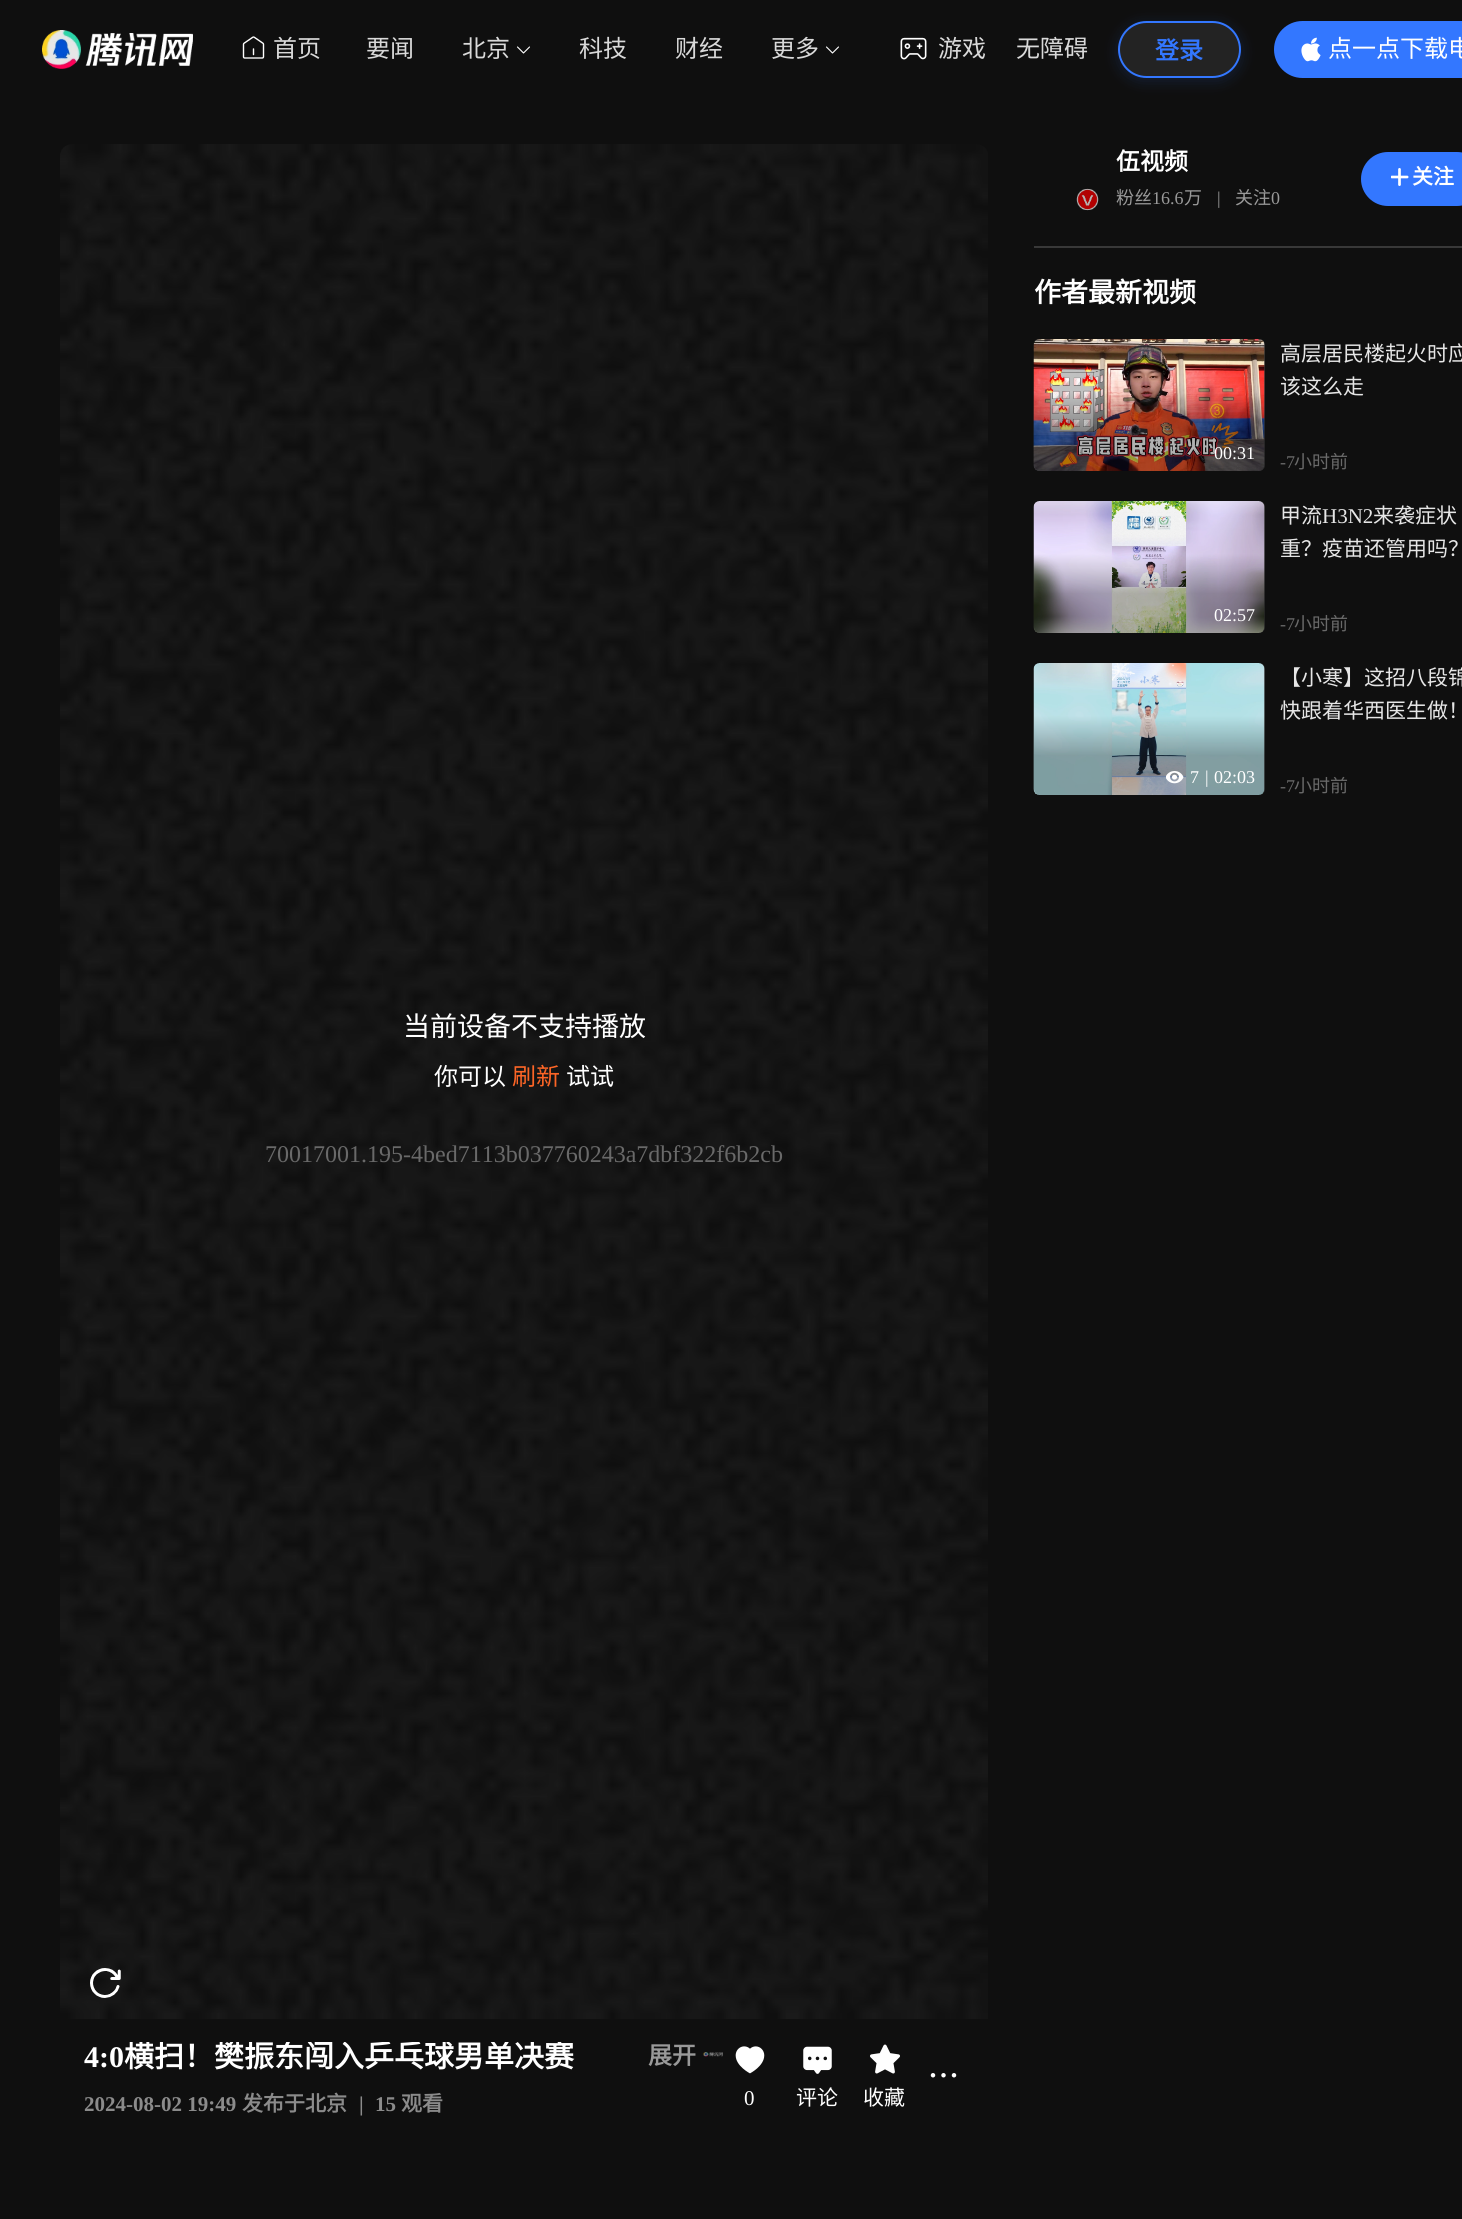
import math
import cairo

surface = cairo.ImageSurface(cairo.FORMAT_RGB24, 1462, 2219)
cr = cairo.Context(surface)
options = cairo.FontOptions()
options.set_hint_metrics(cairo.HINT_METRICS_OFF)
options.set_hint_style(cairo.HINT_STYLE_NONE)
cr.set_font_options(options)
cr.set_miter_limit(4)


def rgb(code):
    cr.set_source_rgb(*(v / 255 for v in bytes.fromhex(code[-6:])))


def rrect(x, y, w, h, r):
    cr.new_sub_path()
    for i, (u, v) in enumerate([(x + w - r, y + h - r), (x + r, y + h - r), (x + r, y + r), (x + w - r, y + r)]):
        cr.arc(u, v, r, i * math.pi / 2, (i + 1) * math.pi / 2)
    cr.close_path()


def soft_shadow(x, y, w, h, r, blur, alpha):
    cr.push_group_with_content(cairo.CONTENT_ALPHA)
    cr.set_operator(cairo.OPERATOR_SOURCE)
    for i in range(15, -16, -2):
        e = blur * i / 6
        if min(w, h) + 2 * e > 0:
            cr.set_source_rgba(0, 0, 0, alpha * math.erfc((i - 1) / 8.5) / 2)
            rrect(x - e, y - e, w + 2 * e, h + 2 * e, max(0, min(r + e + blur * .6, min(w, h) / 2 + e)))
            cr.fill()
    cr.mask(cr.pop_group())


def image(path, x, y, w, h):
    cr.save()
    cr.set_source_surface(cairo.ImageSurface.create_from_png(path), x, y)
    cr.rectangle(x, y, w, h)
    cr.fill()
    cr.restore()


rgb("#0f0f0f")
cr.paint()
image("img/1.png", 42, 30, 151, 39)
image("img/2.png", 242, 36, 23, 23)
cr.new_path()
cr.move_to(529.5, 47)
cr.line_to(523.5, 53)
cr.line_to(517.5, 47)
rgb("#ffffff")
cr.set_line_width(1.1)
cr.set_line_cap(cairo.LINE_CAP_ROUND)
cr.set_line_join(cairo.LINE_JOIN_ROUND)
cr.stroke()
cr.new_path()
cr.move_to(838.5, 47)
cr.line_to(832.5, 53)
cr.line_to(826.5, 47)
cr.stroke()
image("img/3.png", 900, 37, 27, 23)
cr.save()
cr.set_fill_rule(cairo.FILL_RULE_EVEN_ODD)
cr.new_path()
cr.move_to(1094, 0)
cr.line_to(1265, 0)
cr.line_to(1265, 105)
cr.line_to(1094, 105)
cr.close_path()
cr.move_to(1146.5, 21)
cr.line_to(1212.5, 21)
cr.curve_to(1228, 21, 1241, 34, 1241, 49.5)
cr.curve_to(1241, 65, 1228, 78, 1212.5, 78)
cr.line_to(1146.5, 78)
cr.curve_to(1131, 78, 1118, 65, 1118, 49.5)
cr.curve_to(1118, 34, 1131, 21, 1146.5, 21)
cr.close_path()
cr.clip()
rgb("#3377ff")
soft_shadow(1118, 24, 123, 57, 28.5, 7.5, 0.16)
cr.restore()
cr.set_source_rgba(0.851, 0.851, 0.851, 0.1)
rrect(1119, 22, 121, 55, 27.5)
cr.fill_preserve()
rgb("#3377ff")
cr.set_line_width(2)
cr.set_line_cap(cairo.LINE_CAP_BUTT)
cr.set_line_join(cairo.LINE_JOIN_MITER)
cr.stroke()
rrect(1274, 21, 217, 57, 28.5)
cr.fill()
image("img/4.png", 1301, 37, 20, 25)
rrect(1361, 152, 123, 54, 27)
cr.fill()
image("img/5.png", 1391, 168, 18, 18)
image("img/6.png", 1076, 188, 23, 23)
rgb("#383838")
cr.rectangle(1034, 246, 428, 2)
cr.fill()
rgb("#333333")
rrect(1034, 339, 231, 132, 6)
cr.fill()
image("img/7.png", 1033, 339, 232, 132)
gradient = cairo.LinearGradient(1149, 471, 1149, 339)
gradient.add_color_stop_rgba(0.3, 0, 0, 0, 0.3)
gradient.add_color_stop_rgba(0.6, 0, 0, 0, 0)
cr.set_source(gradient)
rrect(1034, 339, 231, 132, 6)
cr.fill()
rgb("#333333")
rrect(1034, 501, 231, 132, 6)
cr.fill()
image("img/8.png", 1033, 501, 232, 132)
gradient = cairo.LinearGradient(1149, 633, 1149, 501)
gradient.add_color_stop_rgba(0.3, 0, 0, 0, 0.3)
gradient.add_color_stop_rgba(0.6, 0, 0, 0, 0)
cr.set_source(gradient)
rrect(1034, 501, 231, 132, 6)
cr.fill()
rgb("#333333")
rrect(1034, 663, 231, 132, 6)
cr.fill()
image("img/9.png", 1033, 663, 232, 132)
gradient = cairo.LinearGradient(1149, 795, 1149, 663)
gradient.add_color_stop_rgba(0.3, 0, 0, 0, 0.3)
gradient.add_color_stop_rgba(0.6, 0, 0, 0, 0)
cr.set_source(gradient)
rrect(1034, 663, 231, 132, 6)
cr.fill()
image("img/10.png", 1166, 771, 18, 13)
image("img/11.png", 60, 144, 928, 1875)
image("img/12.png", 703, 2052, 20, 5)
image("img/13.png", 930, 2073, 27, 5)
image("img/14.png", 735, 2046, 30, 28)
image("img/15.png", 803, 2046, 29, 28)
image("img/16.png", 870, 2044, 30, 30)
cr.select_font_face("Noto Sans CJK SC")
cr.set_font_size(24)
rgb("#d9d9d9")
for x, y, s in [
    (273, 57, "首页"),
    (366, 57, "要闻"),
    (462, 57, "北京"),
    (579, 57, "科技"),
    (675, 57, "财经"),
    (771, 57, "更多"),
    (938, 57, "游戏"),
    (1016, 57, "无障碍"),
]:
    cr.move_to(x, y)
    cr.show_text(s)
cr.select_font_face("Noto Sans CJK SC", cairo.FONT_SLANT_NORMAL, cairo.FONT_WEIGHT_BOLD)
rgb("#3377ff")
cr.move_to(1155, 59)
cr.show_text("登录")
cr.select_font_face("Noto Sans CJK SC")
rgb("#ffffff")
cr.move_to(1328, 57)
cr.show_text("点一点下载电")
cr.select_font_face("Noto Sans CJK SC", cairo.FONT_SLANT_NORMAL, cairo.FONT_WEIGHT_BOLD)
cr.move_to(1116, 170)
cr.show_text("伍视频")
cr.select_font_face("Noto Sans CJK SC")
cr.set_font_size(18)
rgb("#999999")
cr.move_to(1116, 204)
cr.show_text("粉丝")
cr.select_font_face("Liberation Serif")
cr.move_to(1152, 204)
cr.show_text("16.6")
cr.select_font_face("Noto Sans CJK SC")
cr.move_to(1184, 204)
cr.show_text("万")
cr.select_font_face("Liberation Serif")
cr.move_to(1217, 204)
cr.show_text("|")
cr.select_font_face("Noto Sans CJK SC")
cr.move_to(1235, 204)
cr.show_text("关注")
cr.select_font_face("Liberation Serif")
cr.move_to(1271, 204)
cr.show_text("0")
cr.select_font_face("Noto Sans CJK SC", cairo.FONT_SLANT_NORMAL, cairo.FONT_WEIGHT_BOLD)
cr.set_font_size(21)
rgb("#ffffff")
cr.move_to(1412, 184)
cr.show_text("关注")
cr.set_font_size(27)
cr.move_to(1034, 302)
cr.show_text("作者最新视频")
cr.select_font_face("Liberation Serif")
cr.set_font_size(18)
cr.move_to(1214, 459)
cr.show_text("00:31")
cr.select_font_face("Noto Sans CJK SC")
cr.set_font_size(21)
rgb("#e6e6e6")
cr.move_to(1280, 361)
cr.show_text("高层居民楼起火时应")
cr.move_to(1280, 394)
cr.show_text("该这么走")
cr.select_font_face("Liberation Serif")
cr.set_font_size(18)
rgb("#696969")
cr.move_to(1280, 468)
cr.show_text("-7")
cr.select_font_face("Noto Sans CJK SC")
cr.move_to(1294, 468)
cr.show_text("小时前")
cr.select_font_face("Liberation Serif")
rgb("#ffffff")
cr.move_to(1214, 621)
cr.show_text("02:57")
cr.select_font_face("Noto Sans CJK SC")
cr.set_font_size(21)
rgb("#e6e6e6")
cr.move_to(1280, 523)
cr.show_text("甲流")
cr.select_font_face("Liberation Serif")
cr.move_to(1322, 523)
cr.show_text("H3N2")
cr.select_font_face("Noto Sans CJK SC")
cr.move_to(1373, 523)
cr.show_text("来袭症状")
cr.move_to(1280, 556)
cr.show_text("重？疫苗还管用吗？")
cr.select_font_face("Liberation Serif")
cr.set_font_size(18)
rgb("#696969")
cr.move_to(1280, 630)
cr.show_text("-7")
cr.select_font_face("Noto Sans CJK SC")
cr.move_to(1294, 630)
cr.show_text("小时前")
cr.select_font_face("Liberation Serif")
rgb("#ffffff")
for x, y, s in [
    (1190, 783, "7"),
    (1205, 783, "|"),
    (1214, 783, "02:03"),
]:
    cr.move_to(x, y)
    cr.show_text(s)
cr.select_font_face("Noto Sans CJK SC")
cr.set_font_size(21)
rgb("#e6e6e6")
cr.move_to(1280, 685)
cr.show_text("【小寒】这招八段锦")
cr.move_to(1280, 718)
cr.show_text("快跟着华西医生做！")
cr.select_font_face("Liberation Serif")
cr.set_font_size(18)
rgb("#696969")
cr.move_to(1280, 792)
cr.show_text("-7")
cr.select_font_face("Noto Sans CJK SC")
cr.move_to(1294, 792)
cr.show_text("小时前")
cr.set_font_size(27)
rgb("#ffffff")
cr.move_to(403, 1036)
cr.show_text("当前设备不支持播放")
cr.set_font_size(24)
cr.move_to(434, 1085)
cr.show_text("你可以")
rgb("#fc6526")
cr.move_to(512, 1085)
cr.show_text("刷新")
rgb("#ffffff")
cr.move_to(566, 1085)
cr.show_text("试试")
cr.select_font_face("Liberation Serif")
rgb("#696969")
cr.move_to(265, 1162)
cr.show_text("70017001.195-4bed7113b037760243a7dbf322f6b2cb")
cr.select_font_face("Liberation Serif", cairo.FONT_SLANT_NORMAL, cairo.FONT_WEIGHT_BOLD)
cr.set_font_size(30)
rgb("#ffffff")
cr.move_to(84, 2067)
cr.show_text("4:0")
cr.save()
cr.rectangle(84, 2042, 564, 30)
cr.clip()
cr.select_font_face("Noto Sans CJK SC", cairo.FONT_SLANT_NORMAL, cairo.FONT_WEIGHT_BOLD)
cr.move_to(124, 2067)
cr.show_text("横扫！樊振东闯入乒乓球男单决赛")
cr.restore()
cr.select_font_face("Noto Sans CJK SC", cairo.FONT_SLANT_NORMAL, cairo.FONT_WEIGHT_BOLD)
cr.set_font_size(24)
rgb("#999999")
cr.move_to(648, 2064)
cr.show_text("展开")
cr.select_font_face("Liberation Serif", cairo.FONT_SLANT_NORMAL, cairo.FONT_WEIGHT_BOLD)
cr.set_font_size(21)
rgb("#8b8b8b")
cr.move_to(84, 2111)
cr.show_text("2024-08-02 19:49")
cr.select_font_face("Noto Sans CJK SC", cairo.FONT_SLANT_NORMAL, cairo.FONT_WEIGHT_BOLD)
cr.move_to(242, 2111)
cr.show_text("发布于北京")
cr.select_font_face("Liberation Serif", cairo.FONT_SLANT_NORMAL, cairo.FONT_WEIGHT_BOLD)
cr.move_to(359, 2111)
cr.show_text("|")
cr.move_to(375, 2111)
cr.show_text("15")
cr.select_font_face("Noto Sans CJK SC", cairo.FONT_SLANT_NORMAL, cairo.FONT_WEIGHT_BOLD)
cr.move_to(401, 2111)
cr.show_text("观看")
cr.select_font_face("Liberation Serif")
rgb("#ffffff")
cr.move_to(744, 2105)
cr.show_text("0")
cr.select_font_face("Noto Sans CJK SC")
cr.move_to(796, 2105)
cr.show_text("评论")
cr.move_to(863, 2105)
cr.show_text("收藏")
surface.write_to_png("page.png")
